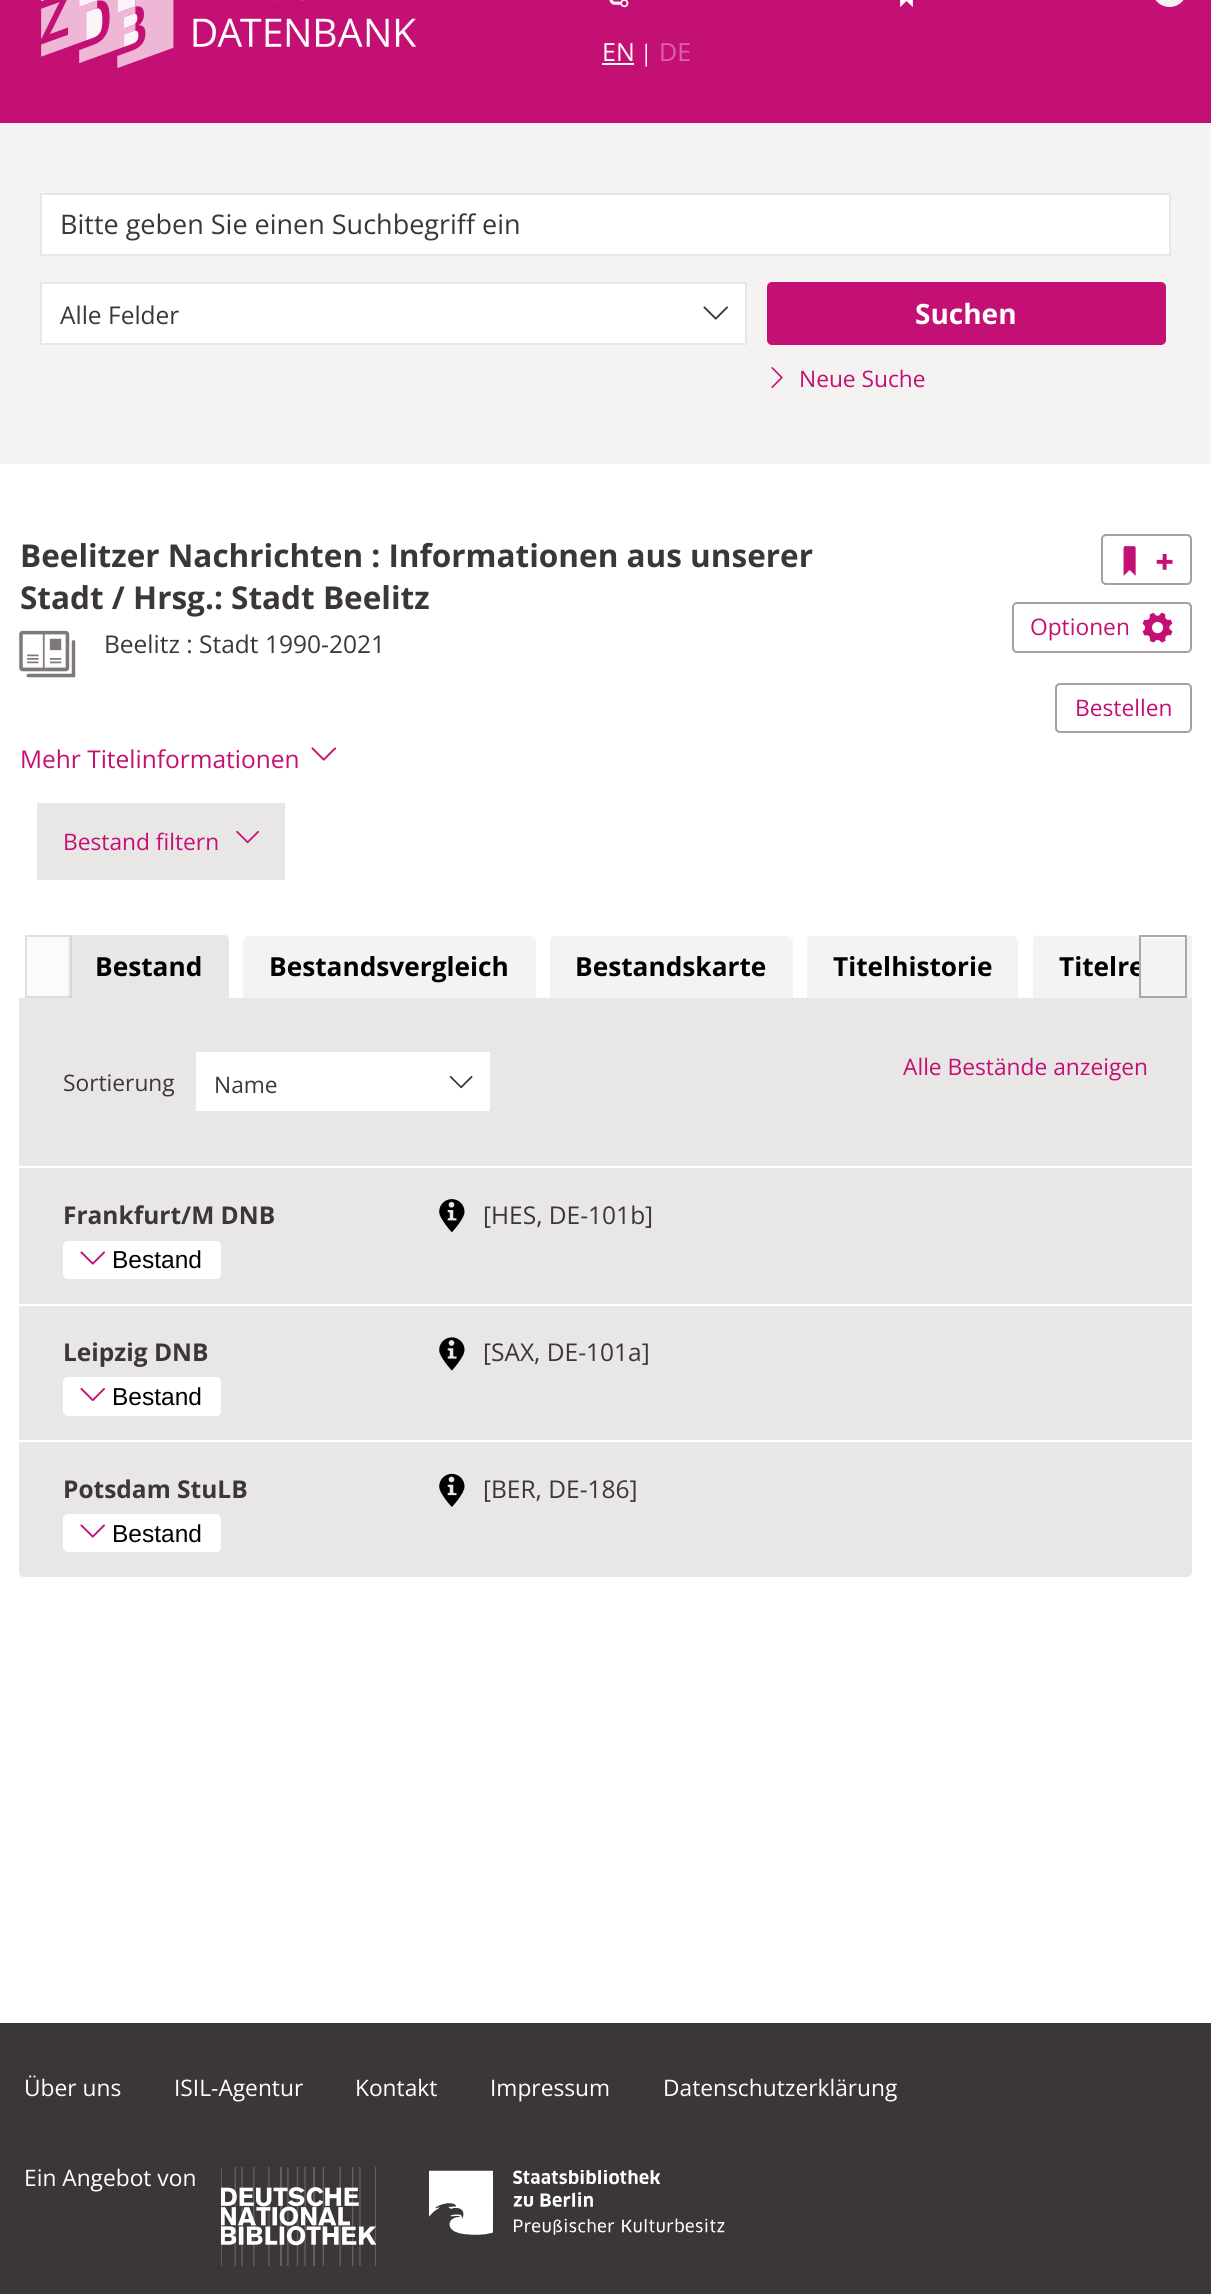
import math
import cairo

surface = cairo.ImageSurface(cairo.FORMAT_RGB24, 1211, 2294)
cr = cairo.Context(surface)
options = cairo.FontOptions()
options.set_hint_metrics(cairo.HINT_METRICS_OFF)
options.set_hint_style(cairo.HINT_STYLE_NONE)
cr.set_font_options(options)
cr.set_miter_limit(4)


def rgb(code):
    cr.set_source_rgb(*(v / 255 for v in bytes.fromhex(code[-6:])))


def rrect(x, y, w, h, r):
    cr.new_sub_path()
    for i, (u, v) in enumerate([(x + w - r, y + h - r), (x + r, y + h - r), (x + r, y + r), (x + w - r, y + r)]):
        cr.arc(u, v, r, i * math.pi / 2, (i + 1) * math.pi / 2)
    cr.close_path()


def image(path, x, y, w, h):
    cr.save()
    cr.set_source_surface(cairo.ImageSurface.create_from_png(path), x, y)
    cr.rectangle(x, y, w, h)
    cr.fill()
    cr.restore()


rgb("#ffffff")
cr.paint()
rgb("#c40f74")
cr.rectangle(0, 0, 1211, 123)
cr.fill()
image("img/1.png", 41, 0, 375, 68)
image("img/2.png", 609, 0, 20, 8)
image("img/3.png", 900, 0, 13, 8)
rgb("#f2f2f2")
rrect(1152, -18, 35, 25, 17.5)
cr.fill()
rgb("#ffffff")
cr.rectangle(602, 63, 32, 2)
cr.fill()
rgb("#f5f2f2")
cr.rectangle(0, 123, 1211, 341)
cr.fill()
rgb("#ffffff")
cr.rectangle(41, 194, 1129, 61)
cr.fill_preserve()
rgb("#e9e6e6")
cr.stroke()
rgb("#ffffff")
cr.rectangle(41, 283, 705, 61)
cr.fill_preserve()
rgb("#e9e6e6")
cr.stroke()
image("img/4.png", 703, 306, 25, 14)
rgb("#c40f74")
rrect(767, 282, 399, 63, 5)
cr.fill()
image("img/5.png", 771, 367, 12, 21)
image("img/6.png", 19, 630, 57, 48)
rrect(1013, 603, 178, 49, 4)
rgb("#a6a0a0")
cr.stroke()
image("img/7.png", 1142, 612, 31, 31)
rrect(1102, 535, 89, 49, 4)
cr.stroke()
image("img/8.png", 1123, 546, 13, 30)
image("img/9.png", 1156, 554, 17, 16)
rrect(1056, 684, 135, 48, 4)
cr.stroke()
image("img/10.png", 311, 747, 25, 14)
rgb("#e9e6e6")
cr.rectangle(37, 803, 248, 77)
cr.fill()
image("img/11.png", 236, 831, 23, 13)
cr.new_path()
cr.move_to(73, 935)
cr.line_to(224, 935)
cr.curve_to(227, 935, 229, 937, 229, 940)
cr.line_to(229, 998)
cr.line_to(68, 998)
cr.line_to(68, 940)
cr.curve_to(68, 937, 70, 935, 73, 935)
cr.close_path()
cr.fill()
cr.set_source_rgba(0.961, 0.949, 0.949, 0.35)
cr.rectangle(25, 935, 47, 63)
cr.fill()
cr.set_source_rgba(1, 1, 1, 0.35)
cr.rectangle(68, 936, 2, 2)
cr.fill()
cr.rectangle(26, 936, 45, 61)
cr.set_source_rgba(0.659, 0.659, 0.659, 0.35)
cr.stroke()
rgb("#f5f2f2")
cr.new_path()
cr.move_to(248, 935)
cr.line_to(531, 935)
cr.curve_to(534, 935, 536, 937, 536, 940)
cr.line_to(536, 998)
cr.line_to(243, 998)
cr.line_to(243, 940)
cr.curve_to(243, 937, 245, 935, 248, 935)
cr.close_path()
cr.fill()
rgb("#ffffff")
cr.new_path()
cr.move_to(248, 936)
cr.line_to(530, 936)
cr.curve_to(533, 936, 536, 939, 536, 942)
cr.curve_to(536, 939, 535, 935, 531, 935)
cr.line_to(247, 935)
cr.curve_to(243, 936, 243, 939, 243, 942)
cr.curve_to(243, 939, 246, 936, 248, 936)
cr.close_path()
cr.fill()
rgb("#f5f2f2")
cr.new_path()
cr.move_to(555, 935)
cr.line_to(788, 935)
cr.curve_to(791, 935, 793, 937, 793, 940)
cr.line_to(793, 998)
cr.line_to(550, 998)
cr.line_to(550, 940)
cr.curve_to(550, 937, 552, 935, 555, 935)
cr.close_path()
cr.fill()
rgb("#ffffff")
cr.new_path()
cr.move_to(555, 936)
cr.line_to(788, 936)
cr.curve_to(790, 936, 793, 939, 793, 942)
cr.curve_to(793, 939, 793, 936, 789, 935)
cr.line_to(554, 935)
cr.curve_to(550, 936, 550, 939, 550, 942)
cr.curve_to(550, 939, 552, 936, 555, 936)
cr.close_path()
cr.fill()
rgb("#f5f2f2")
cr.new_path()
cr.move_to(812, 935)
cr.line_to(1014, 935)
cr.curve_to(1017, 935, 1019, 937, 1019, 940)
cr.line_to(1019, 998)
cr.line_to(807, 998)
cr.line_to(807, 940)
cr.curve_to(807, 937, 809, 935, 812, 935)
cr.close_path()
cr.fill()
rgb("#ffffff")
cr.new_path()
cr.move_to(812, 936)
cr.line_to(1013, 936)
cr.curve_to(1016, 936, 1018, 939, 1018, 942)
cr.line_to(1018, 999)
cr.line_to(1019, 999)
cr.line_to(1019, 940)
cr.curve_to(1019, 937, 1017, 935, 1014, 935)
cr.line_to(812, 935)
cr.curve_to(809, 935, 807, 937, 807, 940)
cr.line_to(807, 942)
cr.curve_to(807, 939, 809, 936, 812, 936)
cr.close_path()
cr.fill()
rgb("#f5f2f2")
cr.new_path()
cr.move_to(1038, 935)
cr.line_to(1192, 935)
cr.line_to(1192, 998)
cr.line_to(1033, 998)
cr.line_to(1033, 940)
cr.curve_to(1033, 937, 1035, 935, 1038, 935)
cr.close_path()
cr.fill()
cr.save()
cr.rectangle(19, 935, 1173, 63)
cr.clip()
rgb("#ffffff")
cr.new_path()
cr.move_to(1038, 936)
cr.line_to(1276, 936)
cr.curve_to(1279, 936, 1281, 939, 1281, 942)
cr.line_to(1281, 940)
cr.curve_to(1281, 937, 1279, 935, 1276, 935)
cr.line_to(1038, 935)
cr.curve_to(1036, 935, 1034, 937, 1033, 939)
cr.curve_to(1034, 937, 1036, 936, 1038, 936)
cr.close_path()
cr.fill()
cr.restore()
rgb("#ffffff")
cr.rectangle(1141, 937, 44, 1)
cr.fill()
rgb("#e9e6e6")
cr.new_path()
cr.move_to(19, 998)
cr.line_to(1192, 998)
cr.line_to(1192, 1572)
cr.curve_to(1192, 1575, 1190, 1577, 1187, 1577)
cr.line_to(24, 1577)
cr.curve_to(21, 1577, 19, 1575, 19, 1572)
cr.close_path()
cr.fill()
rgb("#ffffff")
cr.rectangle(196, 1052, 294, 59)
cr.fill()
image("img/12.png", 449, 1076, 24, 13)
cr.rectangle(19, 1166, 1173, 2)
cr.fill()
image("img/13.png", 439, 1199, 26, 34)
rrect(63, 1241, 158, 38, 5)
cr.fill()
image("img/10.png", 80, 1251, 25, 14)
cr.rectangle(19, 1304, 1173, 2)
cr.fill()
image("img/14.png", 439, 1337, 26, 34)
rrect(63, 1377, 158, 39, 5)
cr.fill()
image("img/15.png", 80, 1387, 25, 15)
cr.rectangle(19, 1440, 1173, 2)
cr.fill()
image("img/16.png", 439, 1473, 26, 34)
rrect(63, 1514, 158, 38, 5)
cr.fill()
image("img/10.png", 80, 1524, 25, 14)
rgb("#3c3737")
cr.rectangle(0, 2023, 1211, 271)
cr.fill()
image("img/17.png", 221, 2167, 155, 99)
image("img/18.png", 429, 2170, 296, 65)
cr.select_font_face("Open Sans")
cr.set_font_size(25)
rgb("#ffffff")
cr.move_to(602, 61)
cr.show_text("EN")
cr.set_font_size(22.75)
cr.move_to(640, 61)
cr.show_text("|")
cr.set_font_size(25)
rgb("#d963a5")
cr.move_to(659, 61)
cr.show_text("DE")
cr.set_font_size(27)
rgb("#3c3737")
cr.move_to(60, 234)
cr.show_text("Bitte geben Sie einen Suchbegriff ein")
cr.set_font_size(24.5)
cr.move_to(60, 324)
cr.show_text("Alle Felder")
cr.select_font_face("Open Sans", cairo.FONT_SLANT_NORMAL, cairo.FONT_WEIGHT_BOLD)
cr.set_font_size(28)
rgb("#ffffff")
cr.move_to(915, 324)
cr.show_text("Suchen")
cr.select_font_face("Open Sans")
cr.set_font_size(22.75)
rgb("#c40f74")
cr.move_to(799, 387)
cr.show_text("Neue Suche")
cr.select_font_face("Open Sans", cairo.FONT_SLANT_NORMAL, cairo.FONT_WEIGHT_BOLD)
cr.set_font_size(31.5)
rgb("#3c3737")
cr.move_to(20, 567)
cr.show_text("Beelitzer Nachrichten : Informationen aus unserer")
cr.move_to(20, 609)
cr.show_text("Stadt / Hrsg.: Stadt Beelitz")
cr.select_font_face("Open Sans")
cr.set_font_size(24.5)
cr.move_to(104, 653)
cr.show_text("Beelitz : Stadt 1990-2021")
cr.set_font_size(22.75)
rgb("#c40f74")
cr.move_to(1030, 635)
cr.show_text("Optionen")
cr.move_to(1075, 716)
cr.show_text("Bestellen")
cr.set_font_size(24.5)
cr.move_to(20, 768)
cr.show_text("Mehr Titelinformationen")
cr.set_font_size(22.75)
cr.move_to(63, 850)
cr.show_text("Bestand filtern")
cr.select_font_face("Open Sans", cairo.FONT_SLANT_NORMAL, cairo.FONT_WEIGHT_BOLD)
cr.set_font_size(26.25)
rgb("#000000")
for x, y, s in [
    (95, 976, "Bestand"),
    (269, 976, "Bestandsvergleich"),
    (575, 976, "Bestandskarte"),
    (833, 976, "Titelhistorie"),
    (1059, 976, "Titelre"),
]:
    cr.move_to(x, y)
    cr.show_text(s)
rgb("#f5f2f2")
cr.rectangle(1141, 962, 3, 14)
cr.fill()
cr.rectangle(1140, 936, 46, 61)
rgb("#a8a8a8")
cr.stroke()
cr.select_font_face("Open Sans")
cr.set_font_size(22.75)
rgb("#c40f74")
cr.move_to(903, 1075)
cr.show_text("Alle Bestände anzeigen")
rgb("#3c3737")
cr.move_to(63, 1091)
cr.show_text("Sortierung")
cr.move_to(214, 1093)
cr.show_text("Name")
cr.select_font_face("Open Sans", cairo.FONT_SLANT_NORMAL, cairo.FONT_WEIGHT_BOLD)
cr.set_font_size(24.5)
cr.move_to(63, 1224)
cr.show_text("Frankfurt/M DNB")
cr.select_font_face("Open Sans")
cr.move_to(483, 1224)
cr.show_text("[HES, DE-101b]")
cr.select_font_face("Liberation Sans")
rgb("#000000")
cr.move_to(112, 1268)
cr.show_text("Bestand")
cr.select_font_face("Open Sans", cairo.FONT_SLANT_NORMAL, cairo.FONT_WEIGHT_BOLD)
rgb("#3c3737")
cr.move_to(63, 1361)
cr.show_text("Leipzig DNB")
cr.select_font_face("Open Sans")
cr.move_to(483, 1361)
cr.show_text("[SAX, DE-101a]")
cr.select_font_face("Liberation Sans")
rgb("#000000")
cr.move_to(112, 1405)
cr.show_text("Bestand")
cr.select_font_face("Open Sans", cairo.FONT_SLANT_NORMAL, cairo.FONT_WEIGHT_BOLD)
rgb("#3c3737")
cr.move_to(63, 1498)
cr.show_text("Potsdam StuLB")
cr.select_font_face("Open Sans")
cr.move_to(483, 1498)
cr.show_text("[BER, DE-186]")
cr.select_font_face("Liberation Sans")
rgb("#000000")
cr.move_to(112, 1542)
cr.show_text("Bestand")
cr.select_font_face("Open Sans")
cr.set_font_size(22.75)
rgb("#ffffff")
for x, y, s in [
    (24, 2096, "Über uns"),
    (174, 2096, "ISIL-Agentur"),
    (355, 2096, "Kontakt"),
    (490, 2096, "Impressum"),
    (663, 2096, "Datenschutzerklärung"),
    (24, 2186, "Ein Angebot von"),
]:
    cr.move_to(x, y)
    cr.show_text(s)
surface.write_to_png("page.png")
